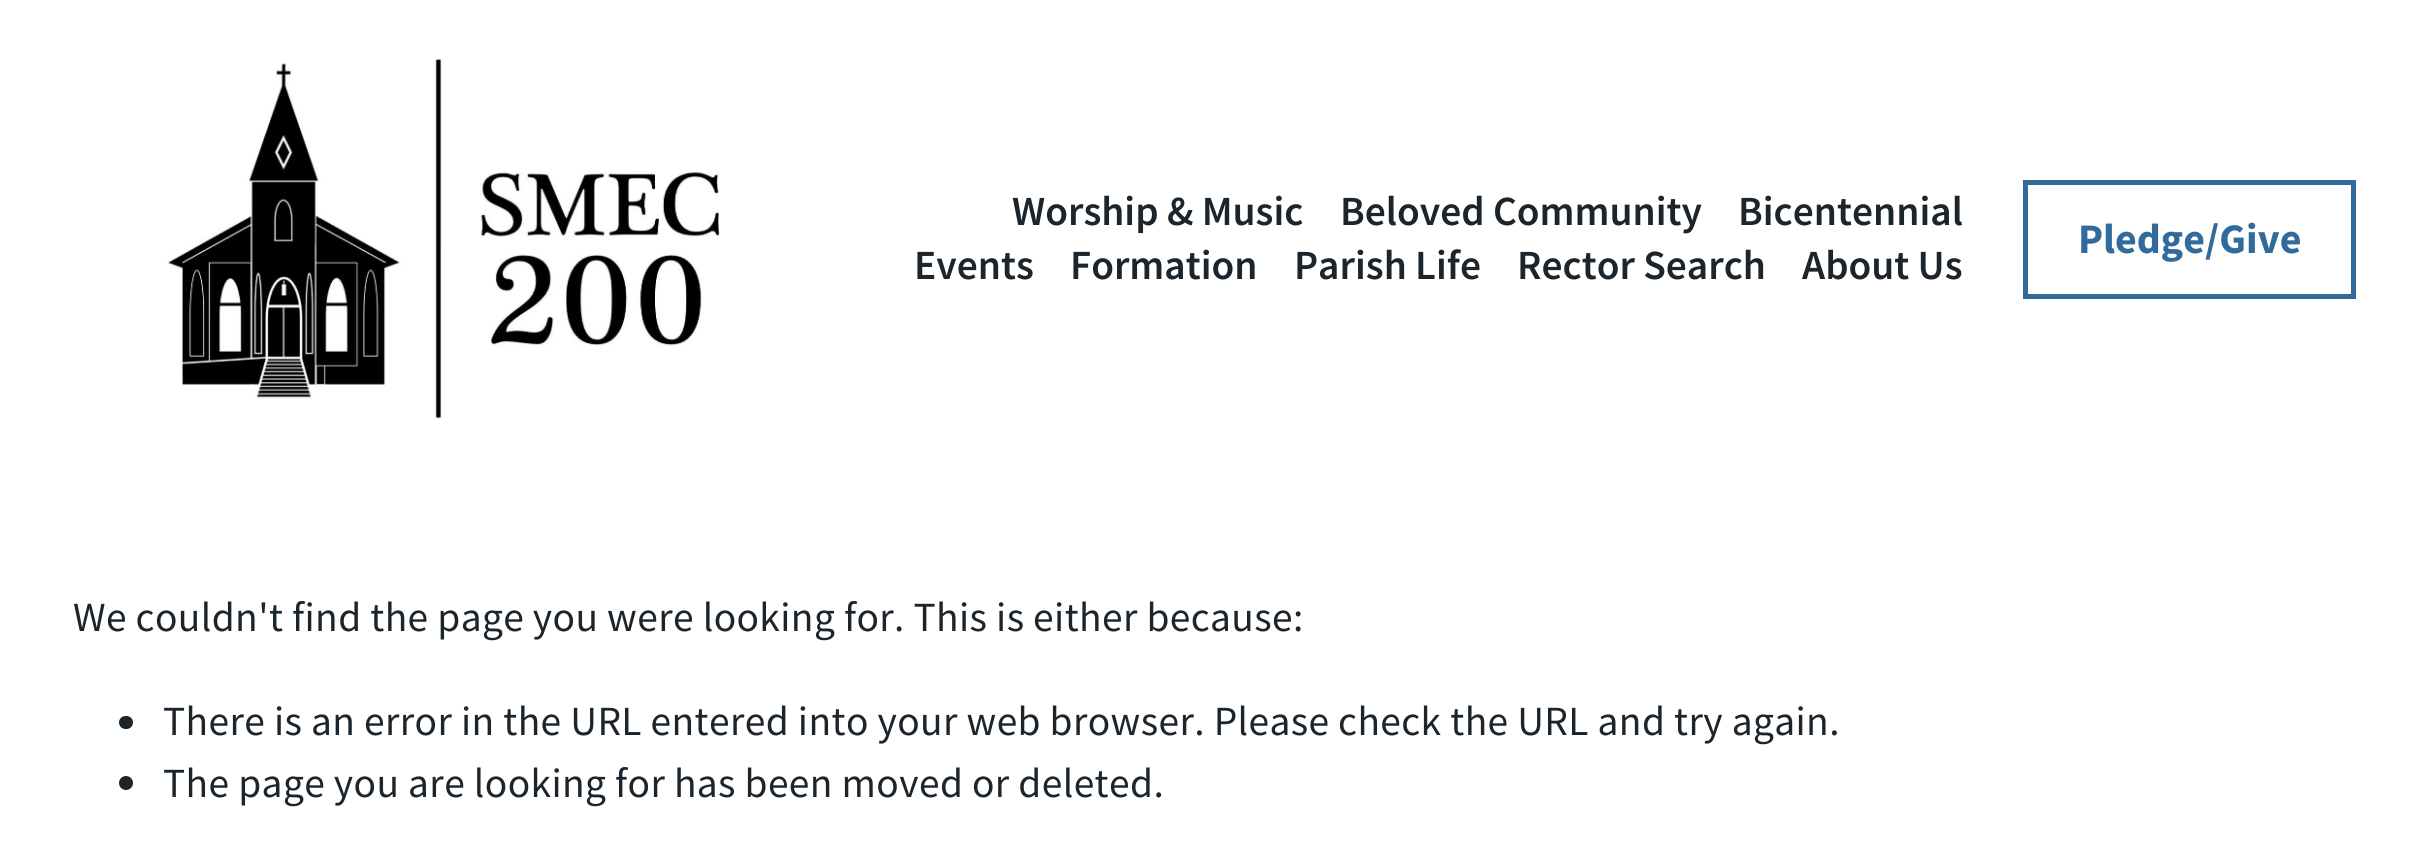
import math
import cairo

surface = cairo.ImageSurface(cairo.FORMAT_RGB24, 2426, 866)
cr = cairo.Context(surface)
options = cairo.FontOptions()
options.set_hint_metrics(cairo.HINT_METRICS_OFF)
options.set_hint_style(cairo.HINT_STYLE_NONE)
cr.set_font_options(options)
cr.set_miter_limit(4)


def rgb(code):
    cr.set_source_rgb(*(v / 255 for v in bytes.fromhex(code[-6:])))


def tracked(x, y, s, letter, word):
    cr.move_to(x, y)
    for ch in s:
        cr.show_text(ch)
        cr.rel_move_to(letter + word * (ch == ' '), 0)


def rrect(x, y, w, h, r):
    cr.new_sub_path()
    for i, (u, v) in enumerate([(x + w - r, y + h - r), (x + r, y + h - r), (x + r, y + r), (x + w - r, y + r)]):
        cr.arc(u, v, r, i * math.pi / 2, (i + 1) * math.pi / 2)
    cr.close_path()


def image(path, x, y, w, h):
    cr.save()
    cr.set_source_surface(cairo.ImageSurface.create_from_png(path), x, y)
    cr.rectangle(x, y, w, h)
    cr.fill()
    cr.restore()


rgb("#ffffff")
cr.paint()
image("img/1.png", 167, 58, 553, 362)
cr.rectangle(2025.5, 182.5, 328, 114)
rgb("#316b9e")
cr.set_line_width(5)
cr.stroke()
rgb("#1d252c")
rrect(119, 716, 14, 13, 6.5)
cr.fill()
cr.arc(126, 783, 7, 0, 2 * math.pi)
cr.fill()
cr.select_font_face("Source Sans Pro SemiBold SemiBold")
cr.set_font_size(41.45)
for x, y, s in [
    (1012, 225, "Worship & Music"),
    (1340, 225, "Beloved Community"),
    (1738, 225, "Bicentennial"),
    (914, 279, "Events"),
    (1070, 279, "Formation"),
    (1294, 279, "Parish Life"),
    (1517, 279, "Rector Search"),
    (1802, 279, "About Us"),
]:
    cr.move_to(x, y)
    cr.show_text(s)
cr.select_font_face("Source Sans Pro", cairo.FONT_SLANT_NORMAL, cairo.FONT_WEIGHT_BOLD)
cr.set_font_size(42)
rgb("#316b9e")
cr.move_to(2078, 253)
cr.show_text("Pledge/Give")
cr.select_font_face("Source Sans Pro")
cr.set_font_size(41.45)
rgb("#1d252c")
for x, y, s in [
    (73, 631, "We couldn't find the page you were looking for. This is either because:"),
    (163, 735, "There is an error in the URL entered into your web browser. Please check the URL and try again."),
    (163, 797, "The page you are looking for has been moved or deleted."),
]:
    tracked(x, y, s, 0.4, 0)
surface.write_to_png("page.png")
